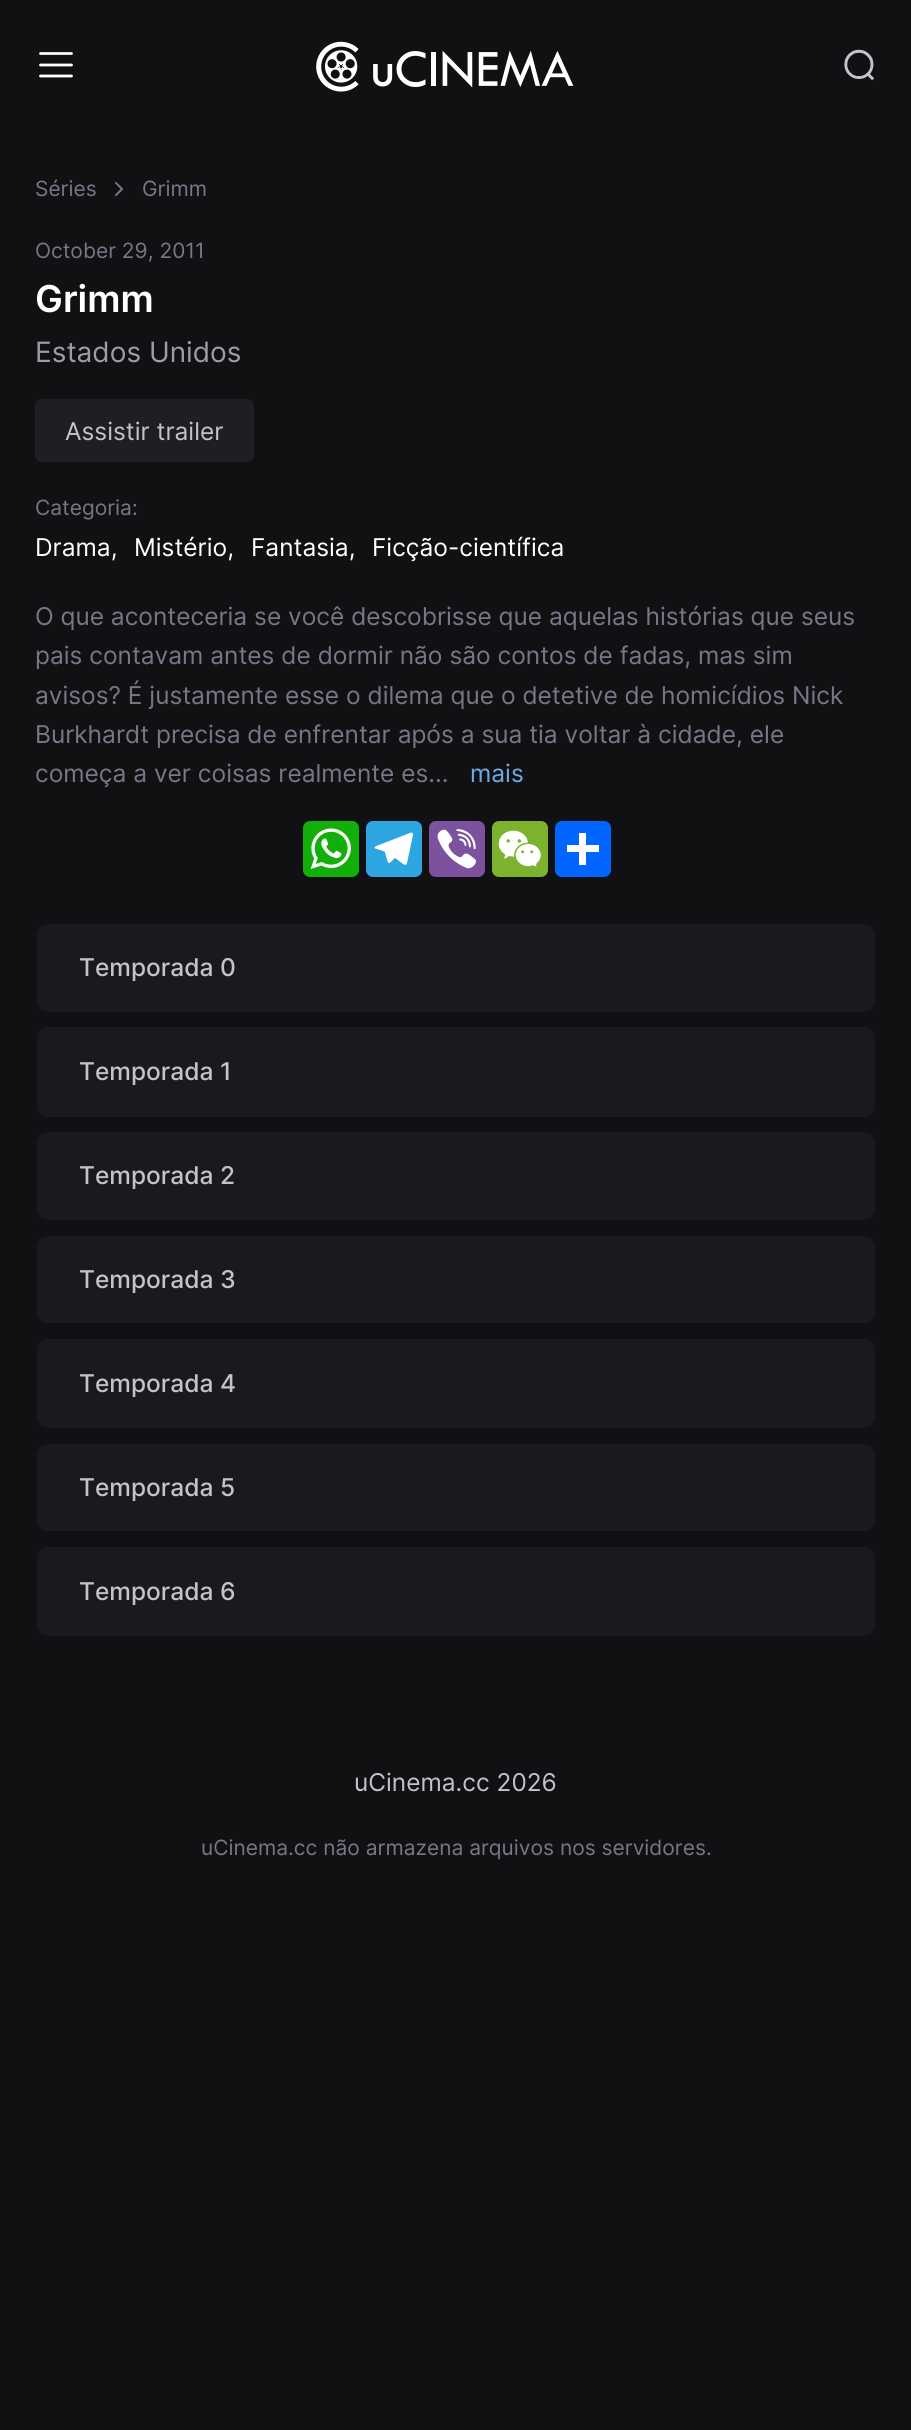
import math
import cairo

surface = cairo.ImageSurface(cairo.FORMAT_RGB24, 911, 2430)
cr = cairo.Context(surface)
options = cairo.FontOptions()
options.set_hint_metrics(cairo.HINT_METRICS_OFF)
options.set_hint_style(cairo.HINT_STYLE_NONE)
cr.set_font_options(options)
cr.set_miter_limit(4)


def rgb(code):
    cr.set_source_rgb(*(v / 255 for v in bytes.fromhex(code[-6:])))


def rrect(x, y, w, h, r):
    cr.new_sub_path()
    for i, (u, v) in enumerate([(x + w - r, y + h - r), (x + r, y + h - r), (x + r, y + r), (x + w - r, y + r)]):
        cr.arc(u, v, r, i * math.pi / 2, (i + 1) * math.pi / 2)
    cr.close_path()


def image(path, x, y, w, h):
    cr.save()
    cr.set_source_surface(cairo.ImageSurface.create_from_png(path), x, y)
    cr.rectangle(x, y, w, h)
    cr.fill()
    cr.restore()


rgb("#111113")
cr.paint()
cr.new_path()
cr.move_to(40.5, 53.5)
cr.line_to(71.5, 53.5)
cr.move_to(40.5, 65)
cr.line_to(71.5, 65)
cr.move_to(40.5, 76)
cr.line_to(71.5, 76)
rgb("#ffffff")
cr.set_line_width(2.8)
cr.set_line_cap(cairo.LINE_CAP_ROUND)
cr.stroke()
image("img/1.png", 316, 41, 258, 51)
image("img/2.png", 844, 49, 31, 32)
image("img/3.png", 114, 181, 9, 16)
rgb("#1f1f23")
rrect(35, 399, 219, 63, 7)
cr.fill()
rgb("#12af0a")
rrect(303, 821, 56, 56, 7)
cr.fill()
image("img/4.png", 310, 828, 41, 41)
rgb("#2ca5e0")
rrect(366, 821, 56, 56, 7)
cr.fill()
image("img/5.png", 374, 832, 39, 33)
rgb("#7c529e")
rrect(429, 821, 56, 56, 7)
cr.fill()
image("img/6.png", 437, 829, 39, 40)
rgb("#7bb32e")
rrect(492, 821, 56, 56, 7)
cr.fill()
image("img/7.png", 498, 830, 43, 37)
rgb("#0166ff")
rrect(555, 821, 56, 56, 7)
cr.fill()
rgb("#ffffff")
cr.rectangle(579, 833, 7, 32)
cr.fill()
cr.rectangle(567, 845, 32, 7)
cr.fill()
rgb("#1a1a1e")
rrect(37, 924, 838, 88, 11)
cr.fill()
rrect(37, 1027, 838, 90, 11)
cr.fill()
rrect(37, 1132, 838, 88, 11)
cr.fill()
rrect(37, 1236, 838, 87, 11)
cr.fill()
rrect(37, 1339, 838, 89, 11)
cr.fill()
rrect(37, 1444, 838, 87, 11)
cr.fill()
rrect(37, 1547, 838, 89, 11)
cr.fill()
cr.select_font_face("Inter")
cr.set_font_size(21)
rgb("#777788")
for x, y, s in [
    (35, 196, "Séries"),
    (142, 196, "Grimm"),
    (35, 258, "October 29, 2011"),
]:
    cr.move_to(x, y)
    cr.show_text(s)
cr.select_font_face("Inter SemiBold")
cr.set_font_size(37)
rgb("#ffffff")
cr.move_to(35, 312)
cr.show_text("Grimm")
cr.select_font_face("Inter")
cr.set_font_size(28)
rgb("#9d9daa")
cr.move_to(35, 362)
cr.show_text("Estados Unidos")
cr.set_font_size(24.5)
rgb("#c3c3cb")
cr.move_to(65, 440)
cr.show_text("Assistir trailer")
cr.set_font_size(21)
rgb("#777788")
cr.move_to(35, 515)
cr.show_text("Categoria:")
cr.set_font_size(24.5)
rgb("#ffffff")
for x, y, s in [
    (35, 556, "Drama,"),
    (134, 556, "Mistério,"),
    (251, 556, "Fantasia,"),
    (372, 556, "Ficção-científica"),
]:
    cr.move_to(x, y)
    cr.show_text(s)
rgb("#777788")
for x, y, s in [
    (35, 625, "O que aconteceria se você descobrisse que aquelas histórias que seus"),
    (35, 664, "pais contavam antes de dormir não são contos de fadas, mas sim"),
    (35, 704, "avisos? É justamente esse o dilema que o detetive de homicídios Nick"),
    (35, 743, "Burkhardt precisa de enfrentar após a sua tia voltar à cidade, ele"),
    (35, 782, "começa a ver coisas realmente es..."),
]:
    cr.move_to(x, y)
    cr.show_text(s)
rgb("#6cace4")
cr.move_to(470, 782)
cr.show_text("mais")
cr.select_font_face("Inter Medium")
rgb("#c3c3cb")
for x, y, s in [
    (79, 976, "Temporada 0"),
    (79, 1080, "Temporada 1"),
    (79, 1184, "Temporada 2"),
    (79, 1288, "Temporada 3"),
    (79, 1392, "Temporada 4"),
    (79, 1496, "Temporada 5"),
    (79, 1600, "Temporada 6"),
]:
    cr.move_to(x, y)
    cr.show_text(s)
cr.select_font_face("Inter")
cr.move_to(354, 1791)
cr.show_text("uCinema.cc 2026")
cr.set_font_size(21)
rgb("#777788")
cr.move_to(201, 1855)
cr.show_text("uCinema.cc não armazena arquivos nos servidores.")
surface.write_to_png("page.png")
